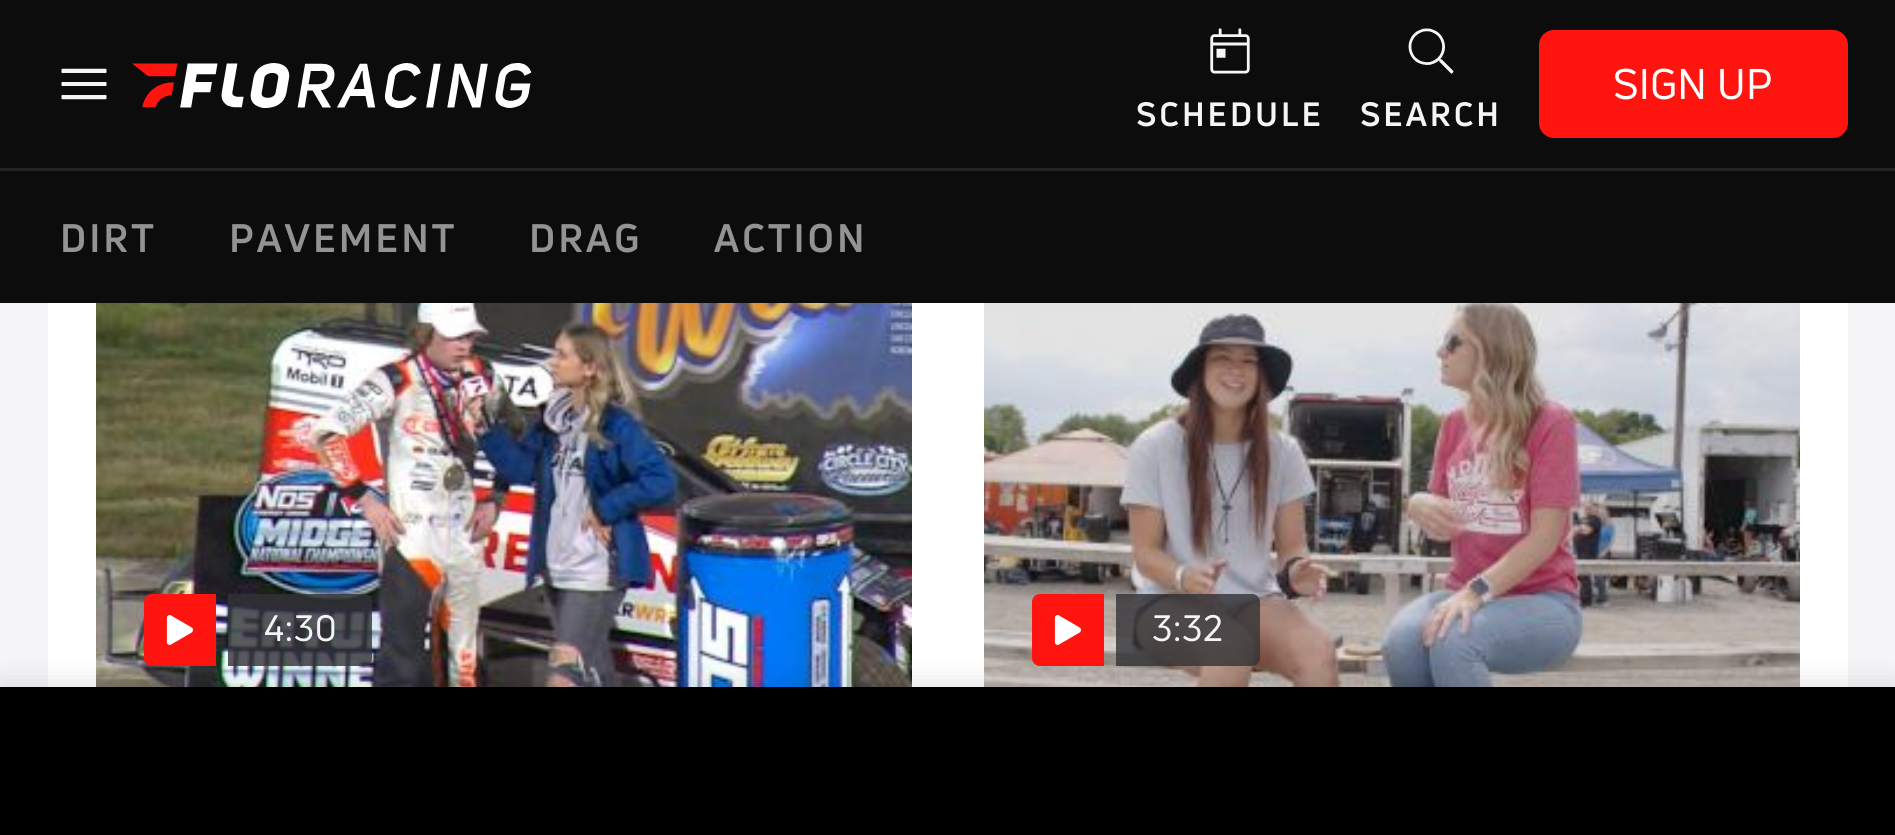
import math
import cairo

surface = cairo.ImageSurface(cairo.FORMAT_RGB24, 1895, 835)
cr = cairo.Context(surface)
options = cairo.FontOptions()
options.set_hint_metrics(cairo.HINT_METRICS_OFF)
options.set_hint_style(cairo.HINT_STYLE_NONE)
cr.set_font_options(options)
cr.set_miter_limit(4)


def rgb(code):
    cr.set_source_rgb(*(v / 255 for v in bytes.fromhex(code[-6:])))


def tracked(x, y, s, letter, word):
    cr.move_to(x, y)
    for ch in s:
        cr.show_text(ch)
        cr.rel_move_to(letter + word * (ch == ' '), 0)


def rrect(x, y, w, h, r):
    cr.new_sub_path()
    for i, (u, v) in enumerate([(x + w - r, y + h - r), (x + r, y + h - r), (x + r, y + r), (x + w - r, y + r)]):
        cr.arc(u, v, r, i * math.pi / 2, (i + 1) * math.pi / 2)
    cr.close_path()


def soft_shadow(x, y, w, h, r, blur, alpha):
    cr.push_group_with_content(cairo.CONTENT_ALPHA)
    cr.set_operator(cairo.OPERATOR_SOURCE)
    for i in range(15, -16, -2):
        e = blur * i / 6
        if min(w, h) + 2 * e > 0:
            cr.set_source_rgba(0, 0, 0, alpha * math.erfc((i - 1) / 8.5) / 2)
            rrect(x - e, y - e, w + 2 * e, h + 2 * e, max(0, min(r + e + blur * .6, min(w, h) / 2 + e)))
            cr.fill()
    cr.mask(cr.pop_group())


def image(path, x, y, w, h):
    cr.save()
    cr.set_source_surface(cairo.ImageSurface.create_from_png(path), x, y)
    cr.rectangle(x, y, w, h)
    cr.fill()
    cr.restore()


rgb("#f5f5f7")
cr.paint()
rgb("#0c0c0c")
cr.rectangle(0, 0, 1895, 303)
cr.fill()
image("img/1.png", 61, 68, 46, 32)
image("img/2.png", 132, 63, 399, 45)
rgb("#ff140f")
rrect(1540.5, 31.5, 306, 105, 13.5)
cr.fill_preserve()
cr.set_line_width(3)
cr.stroke()
image("img/3.png", 1210, 28, 40, 46)
image("img/4.png", 1408, 28, 46, 46)
rgb("#232327")
cr.rectangle(0, 168, 1895, 3)
cr.fill()
rgb("#ffffff")
cr.rectangle(48, 303, 1800, 384)
cr.fill()
image("img/5.png", 96, 303, 816, 384)
rgb("#ff140f")
cr.new_path()
cr.move_to(152, 594)
cr.line_to(216, 594)
cr.line_to(216, 666)
cr.line_to(152, 666)
cr.curve_to(147.5, 666, 144, 662.5, 144, 658)
cr.line_to(144, 602)
cr.curve_to(144, 597.5, 147.5, 594, 152, 594)
cr.close_path()
cr.fill()
image("img/6.png", 166, 615, 27, 30)
cr.set_source_rgba(0.196, 0.196, 0.212, 0.8)
cr.new_path()
cr.move_to(228, 594)
cr.line_to(364, 594)
cr.curve_to(368.5, 594, 372, 597.5, 372, 602)
cr.line_to(372, 658)
cr.curve_to(372, 662.5, 368.5, 666, 364, 666)
cr.line_to(228, 666)
cr.close_path()
cr.fill()
image("img/7.png", 984, 303, 816, 384)
rgb("#ff140f")
cr.new_path()
cr.move_to(1040, 594)
cr.line_to(1104, 594)
cr.line_to(1104, 666)
cr.line_to(1040, 666)
cr.curve_to(1035.5, 666, 1032, 662.5, 1032, 658)
cr.line_to(1032, 602)
cr.curve_to(1032, 597.5, 1035.5, 594, 1040, 594)
cr.close_path()
cr.fill()
image("img/6.png", 1054, 615, 27, 30)
cr.set_source_rgba(0.196, 0.196, 0.212, 0.8)
cr.new_path()
cr.move_to(1116, 594)
cr.line_to(1252, 594)
cr.curve_to(1256.5, 594, 1260, 597.5, 1260, 602)
cr.line_to(1260, 658)
cr.curve_to(1260, 662.5, 1256.5, 666, 1252, 666)
cr.line_to(1116, 666)
cr.close_path()
cr.fill()
rgb("#000000")
soft_shadow(0, 681, 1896, 150, 0, 12, 0.1)
rgb("#000000")
cr.rectangle(0, 687, 1895, 148)
cr.fill()
cr.select_font_face("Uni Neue")
cr.set_font_size(42)
rgb("#ffffff")
tracked(1613, 99, "SIGN UP", 0.25, 0)
cr.select_font_face("Uni Neue", cairo.FONT_SLANT_NORMAL, cairo.FONT_WEIGHT_BOLD)
cr.set_font_size(33)
rgb("#f5f5f7")
tracked(1136, 126, "SCHEDULE", 3, 0)
tracked(1360, 126, "SEARCH", 3, 0)
cr.set_font_size(39)
rgb("#939396")
for x, y, s in [
    (60, 252, "DIRT"),
    (229, 252, "PAVEMENT"),
    (529, 252, "DRAG"),
    (714, 252, "ACTION"),
]:
    tracked(x, y, s, 3, 0)
cr.select_font_face("Uni Neue")
cr.set_font_size(36)
rgb("#f5f5f7")
tracked(264, 641, "4:30", 0.5, 0)
tracked(1152, 641, "3:32", 0.5, 0)
surface.write_to_png("page.png")
